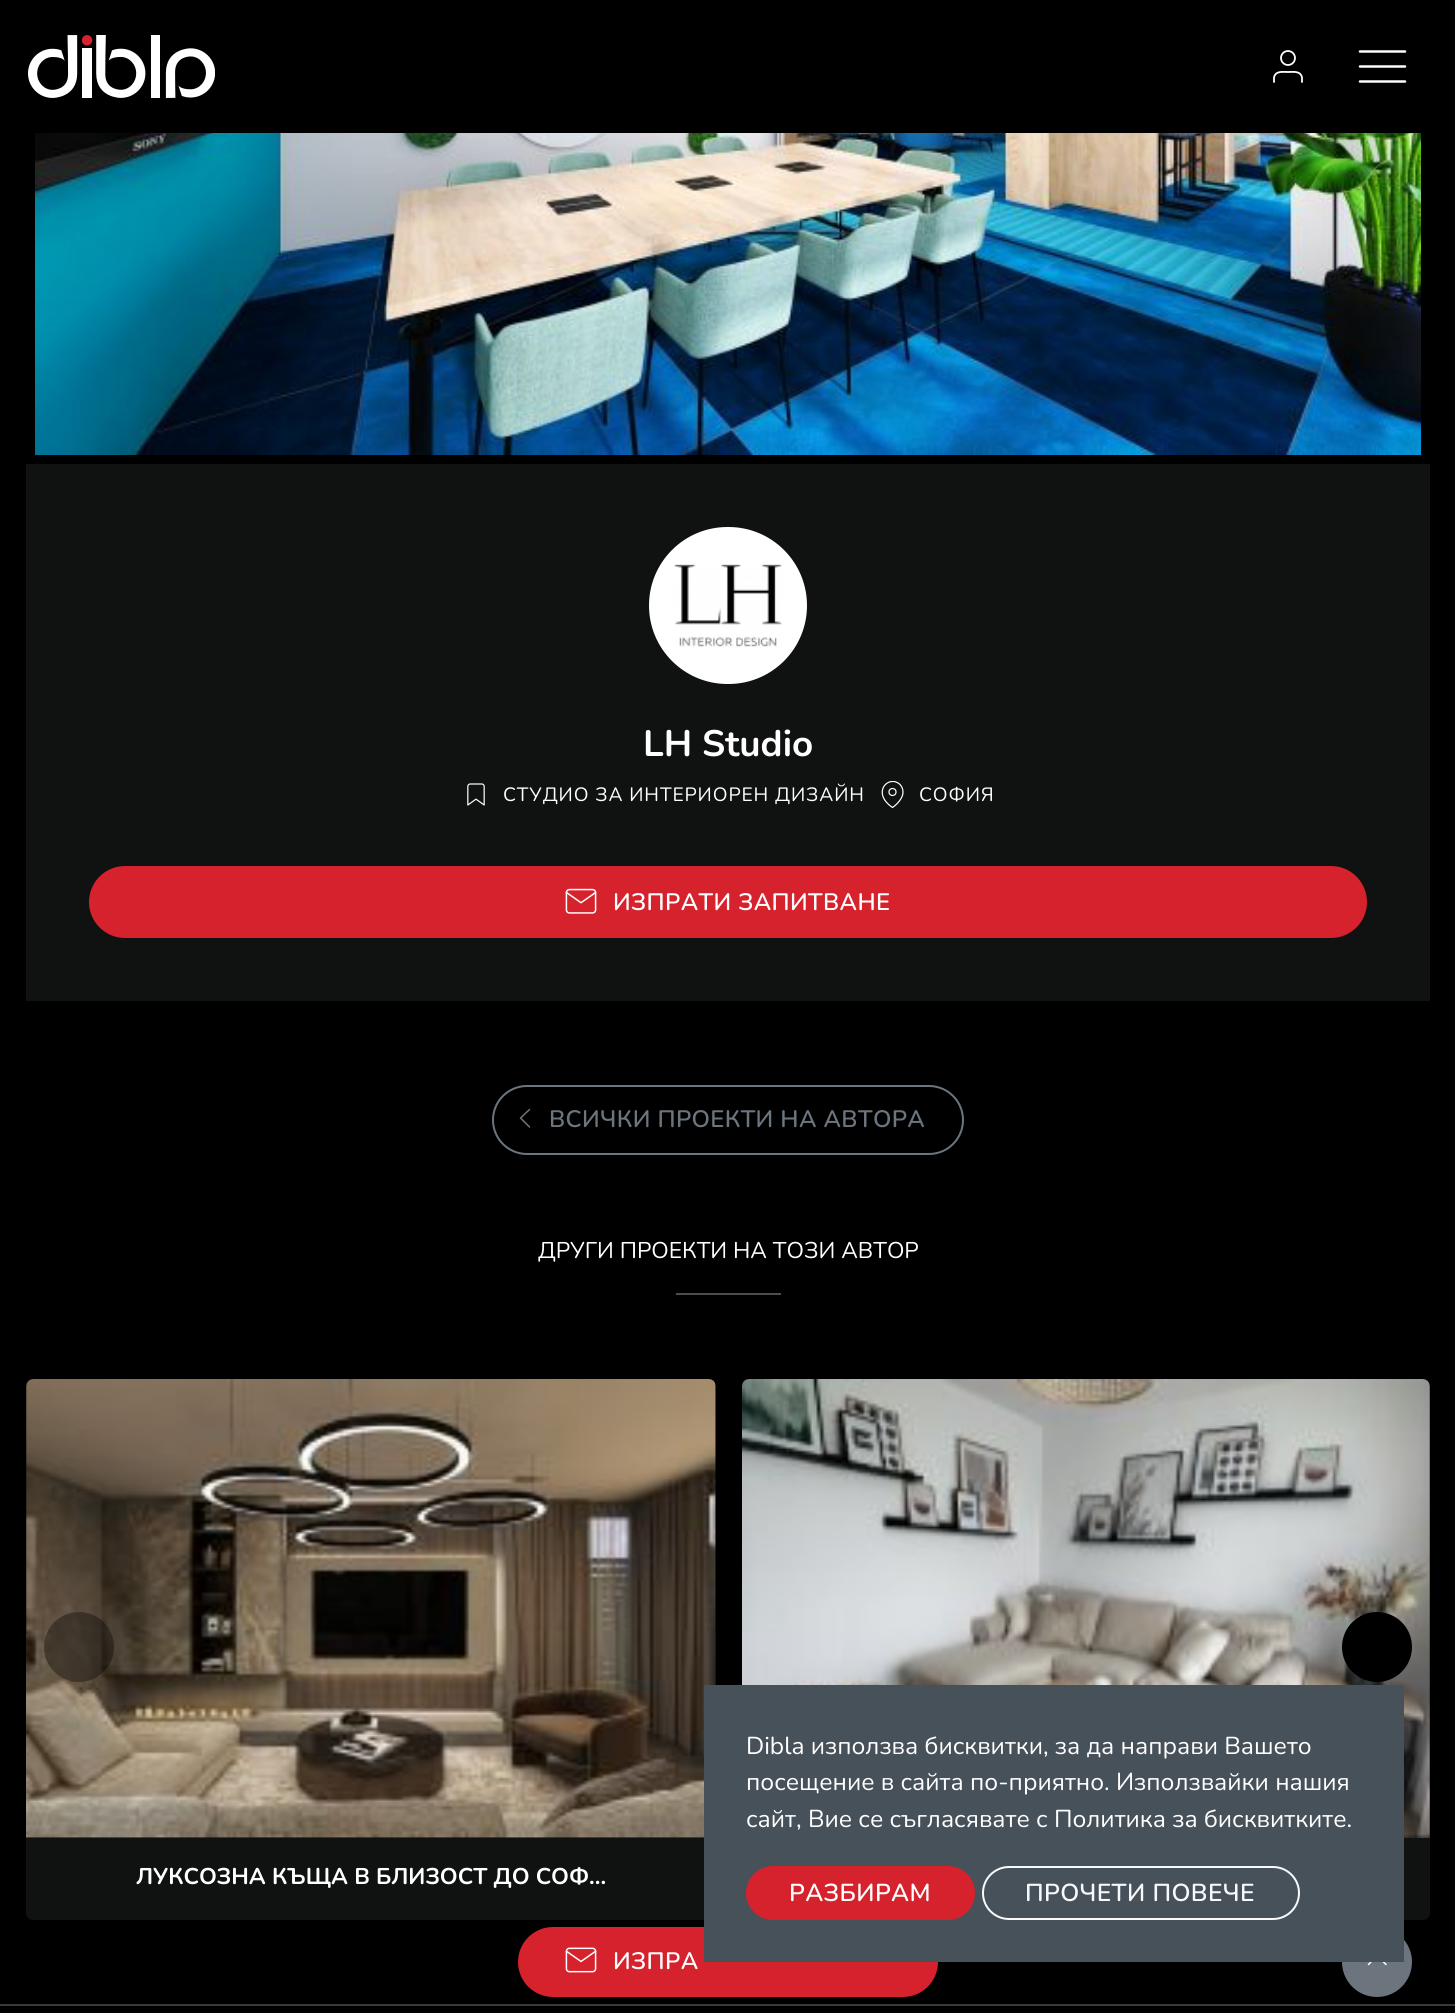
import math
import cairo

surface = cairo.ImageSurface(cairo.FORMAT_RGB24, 1455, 2013)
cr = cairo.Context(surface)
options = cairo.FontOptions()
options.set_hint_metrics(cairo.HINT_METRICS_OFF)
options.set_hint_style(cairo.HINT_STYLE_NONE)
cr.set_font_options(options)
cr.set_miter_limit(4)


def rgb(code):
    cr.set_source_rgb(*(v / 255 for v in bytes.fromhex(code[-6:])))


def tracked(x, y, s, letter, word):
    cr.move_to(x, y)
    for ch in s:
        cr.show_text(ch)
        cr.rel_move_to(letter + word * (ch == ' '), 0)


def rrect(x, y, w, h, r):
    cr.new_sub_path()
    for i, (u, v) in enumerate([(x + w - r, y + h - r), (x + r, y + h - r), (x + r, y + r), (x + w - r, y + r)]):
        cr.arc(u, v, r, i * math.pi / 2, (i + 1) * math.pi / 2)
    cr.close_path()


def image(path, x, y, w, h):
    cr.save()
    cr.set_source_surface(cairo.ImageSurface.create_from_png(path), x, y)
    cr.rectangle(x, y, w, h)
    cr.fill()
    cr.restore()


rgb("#000000")
cr.paint()
image("img/1.png", 28, 35, 187, 63)
cr.arc(1288, 58, 7, 0, 2 * math.pi)
rgb("#ffffff")
cr.set_line_width(1.8)
cr.stroke()
cr.new_path()
cr.move_to(1302, 82)
cr.line_to(1302, 77.5)
cr.curve_to(1300.5, 70.5, 1293, 72, 1288, 72)
cr.curve_to(1283, 72, 1275.5, 70.5, 1274, 77.5)
cr.line_to(1274, 82)
cr.set_line_cap(cairo.LINE_CAP_ROUND)
cr.set_line_join(cairo.LINE_JOIN_ROUND)
cr.stroke()
cr.new_path()
cr.move_to(1360, 66.5)
cr.line_to(1405, 66.5)
cr.move_to(1360, 51.5)
cr.line_to(1405, 51.5)
cr.move_to(1360, 81.5)
cr.line_to(1405, 81.5)
cr.set_line_width(2.5)
cr.stroke()
rgb("#101111")
cr.rectangle(26, 464, 1404, 537)
cr.fill()
rgb("#ffffff")
rrect(651, 529, 154, 153, 76.5)
cr.fill_preserve()
cr.set_line_width(4)
cr.set_line_cap(cairo.LINE_CAP_BUTT)
cr.set_line_join(cairo.LINE_JOIN_MITER)
cr.stroke()
image("img/2.png", 674, 564, 108, 83)
image("img/3.png", 467, 783, 18, 23)
cr.save()
cr.rectangle(879, 781, 28, 28)
cr.clip()
cr.new_path()
cr.move_to(903, 792)
cr.curve_to(903, 800.5, 892.5, 807.5, 892.5, 807.5)
cr.curve_to(870.5, 792.5, 889, 774, 900, 784.5)
cr.curve_to(902, 786.5, 903, 789.5, 903, 792)
cr.close_path()
cr.set_line_width(1.2)
cr.set_line_cap(cairo.LINE_CAP_ROUND)
cr.set_line_join(cairo.LINE_JOIN_ROUND)
cr.stroke()
cr.restore()
cr.arc(892.5, 792, 3.5, 0, 2 * math.pi)
cr.set_line_width(1.2)
cr.stroke()
rgb("#d5222c")
rrect(89, 866, 1278, 72, 36)
cr.fill()
image("img/4.png", 565, 888, 32, 26)
image("img/5.png", 35, 133, 1386, 322)
rrect(518, 1927, 420, 70, 35)
cr.fill()
image("img/6.png", 565, 1947, 32, 26)
rrect(493, 1086, 470, 68, 34)
rgb("#6c757d")
cr.set_line_width(2)
cr.stroke()
cr.new_path()
cr.move_to(529.5, 1127)
cr.line_to(520.5, 1118)
cr.line_to(529.5, 1109.5)
cr.set_line_width(1.5)
cr.set_line_cap(cairo.LINE_CAP_ROUND)
cr.set_line_join(cairo.LINE_JOIN_ROUND)
cr.stroke()
rgb("#4d4d4d")
cr.rectangle(676, 1293, 105, 2)
cr.fill()
image("img/7.png", 26, 1379, 690, 459)
cr.set_source_rgba(0, 0, 0, 0.35)
cr.arc(79, 1647, 35, 0, 2 * math.pi)
cr.fill()
image("img/8.png", 742, 1379, 688, 459)
rgb("#000000")
cr.arc(1377, 1647, 35, 0, 2 * math.pi)
cr.fill()
rgb("#101111")
cr.new_path()
cr.move_to(26, 1838)
cr.line_to(716, 1838)
cr.line_to(716, 1913)
cr.curve_to(716, 1917, 713, 1920, 709, 1920)
cr.line_to(33, 1920)
cr.curve_to(29, 1920, 26, 1917, 26, 1913)
cr.close_path()
cr.fill()
cr.new_path()
cr.move_to(742, 1838)
cr.line_to(1430, 1838)
cr.line_to(1430, 1913)
cr.curve_to(1430, 1917, 1427, 1920, 1423, 1920)
cr.line_to(749, 1920)
cr.curve_to(745, 1920, 742, 1917, 742, 1913)
cr.close_path()
cr.fill()
rgb("#6c757d")
cr.arc(1377, 1962, 34, 0, 2 * math.pi)
cr.fill_preserve()
cr.set_line_width(2)
cr.set_line_cap(cairo.LINE_CAP_BUTT)
cr.set_line_join(cairo.LINE_JOIN_MITER)
cr.stroke()
cr.new_path()
cr.move_to(1386, 1964.5)
cr.line_to(1377, 1955.5)
cr.line_to(1368.5, 1964.5)
rgb("#ffffff")
cr.set_line_width(1.5)
cr.set_line_cap(cairo.LINE_CAP_ROUND)
cr.set_line_join(cairo.LINE_JOIN_ROUND)
cr.stroke()
rgb("#47515a")
cr.rectangle(704, 1685, 700, 277)
cr.fill()
rgb("#d5222c")
rrect(746, 1866, 229, 54, 27)
cr.fill()
rrect(983, 1867, 316, 52, 26)
rgb("#f8f9fa")
cr.set_line_width(2)
cr.set_line_cap(cairo.LINE_CAP_BUTT)
cr.set_line_join(cairo.LINE_JOIN_MITER)
cr.stroke()
rgb("#343a40")
cr.rectangle(0, 2004, 1455, 2)
cr.fill()
cr.select_font_face("Nunito", cairo.FONT_SLANT_NORMAL, cairo.FONT_WEIGHT_BOLD)
cr.set_font_size(36.75)
rgb("#ffffff")
cr.move_to(643, 756)
cr.show_text("LH Studio")
cr.select_font_face("Nunito")
cr.set_font_size(19.25)
tracked(503, 801, "СТУДИО ЗА ИНТЕРИОРЕН ДИЗАЙН", 0.9, 0)
tracked(919, 801, "СОФИЯ", 0.9, 0)
cr.select_font_face("Nunito SemiBold")
cr.set_font_size(23.75)
tracked(613, 910, "ИЗПРАТИ ЗАПИТВАНЕ", 0.4, 0)
tracked(613, 1969, "ИЗПРА", 0.4, 0)
rgb("#6c757d")
tracked(549, 1127, "ВСИЧКИ ПРОЕКТИ НА АВТОРА", 0.4, 0)
cr.select_font_face("Nunito")
cr.set_font_size(22.75)
rgb("#ffffff")
cr.move_to(538, 1258)
cr.show_text("ДРУГИ ПРОЕКТИ НА ТОЗИ АВТОР")
cr.select_font_face("Nunito", cairo.FONT_SLANT_NORMAL, cairo.FONT_WEIGHT_BOLD)
cr.move_to(136, 1884)
cr.show_text("ЛУКСОЗНА КЪЩА В БЛИЗОСТ ДО СОФ...")
cr.select_font_face("Nunito")
cr.set_font_size(24.5)
for x, y, s in [
    (746, 1754, "Dibla използва бисквитки, за да направи Вашето"),
    (746, 1790, "посещение в сайта по-приятно. Използвайки нашия"),
    (746, 1827, "сайт, Вие се съгласявате с Политика за бисквитките."),
]:
    cr.move_to(x, y)
    cr.show_text(s)
cr.select_font_face("Nunito SemiBold")
tracked(789, 1901, "РАЗБИРАМ", 0.4, 0)
rgb("#f8f9fa")
tracked(1025, 1901, "ПРОЧЕТИ ПОВЕЧЕ", 0.4, 0)
surface.write_to_png("page.png")
